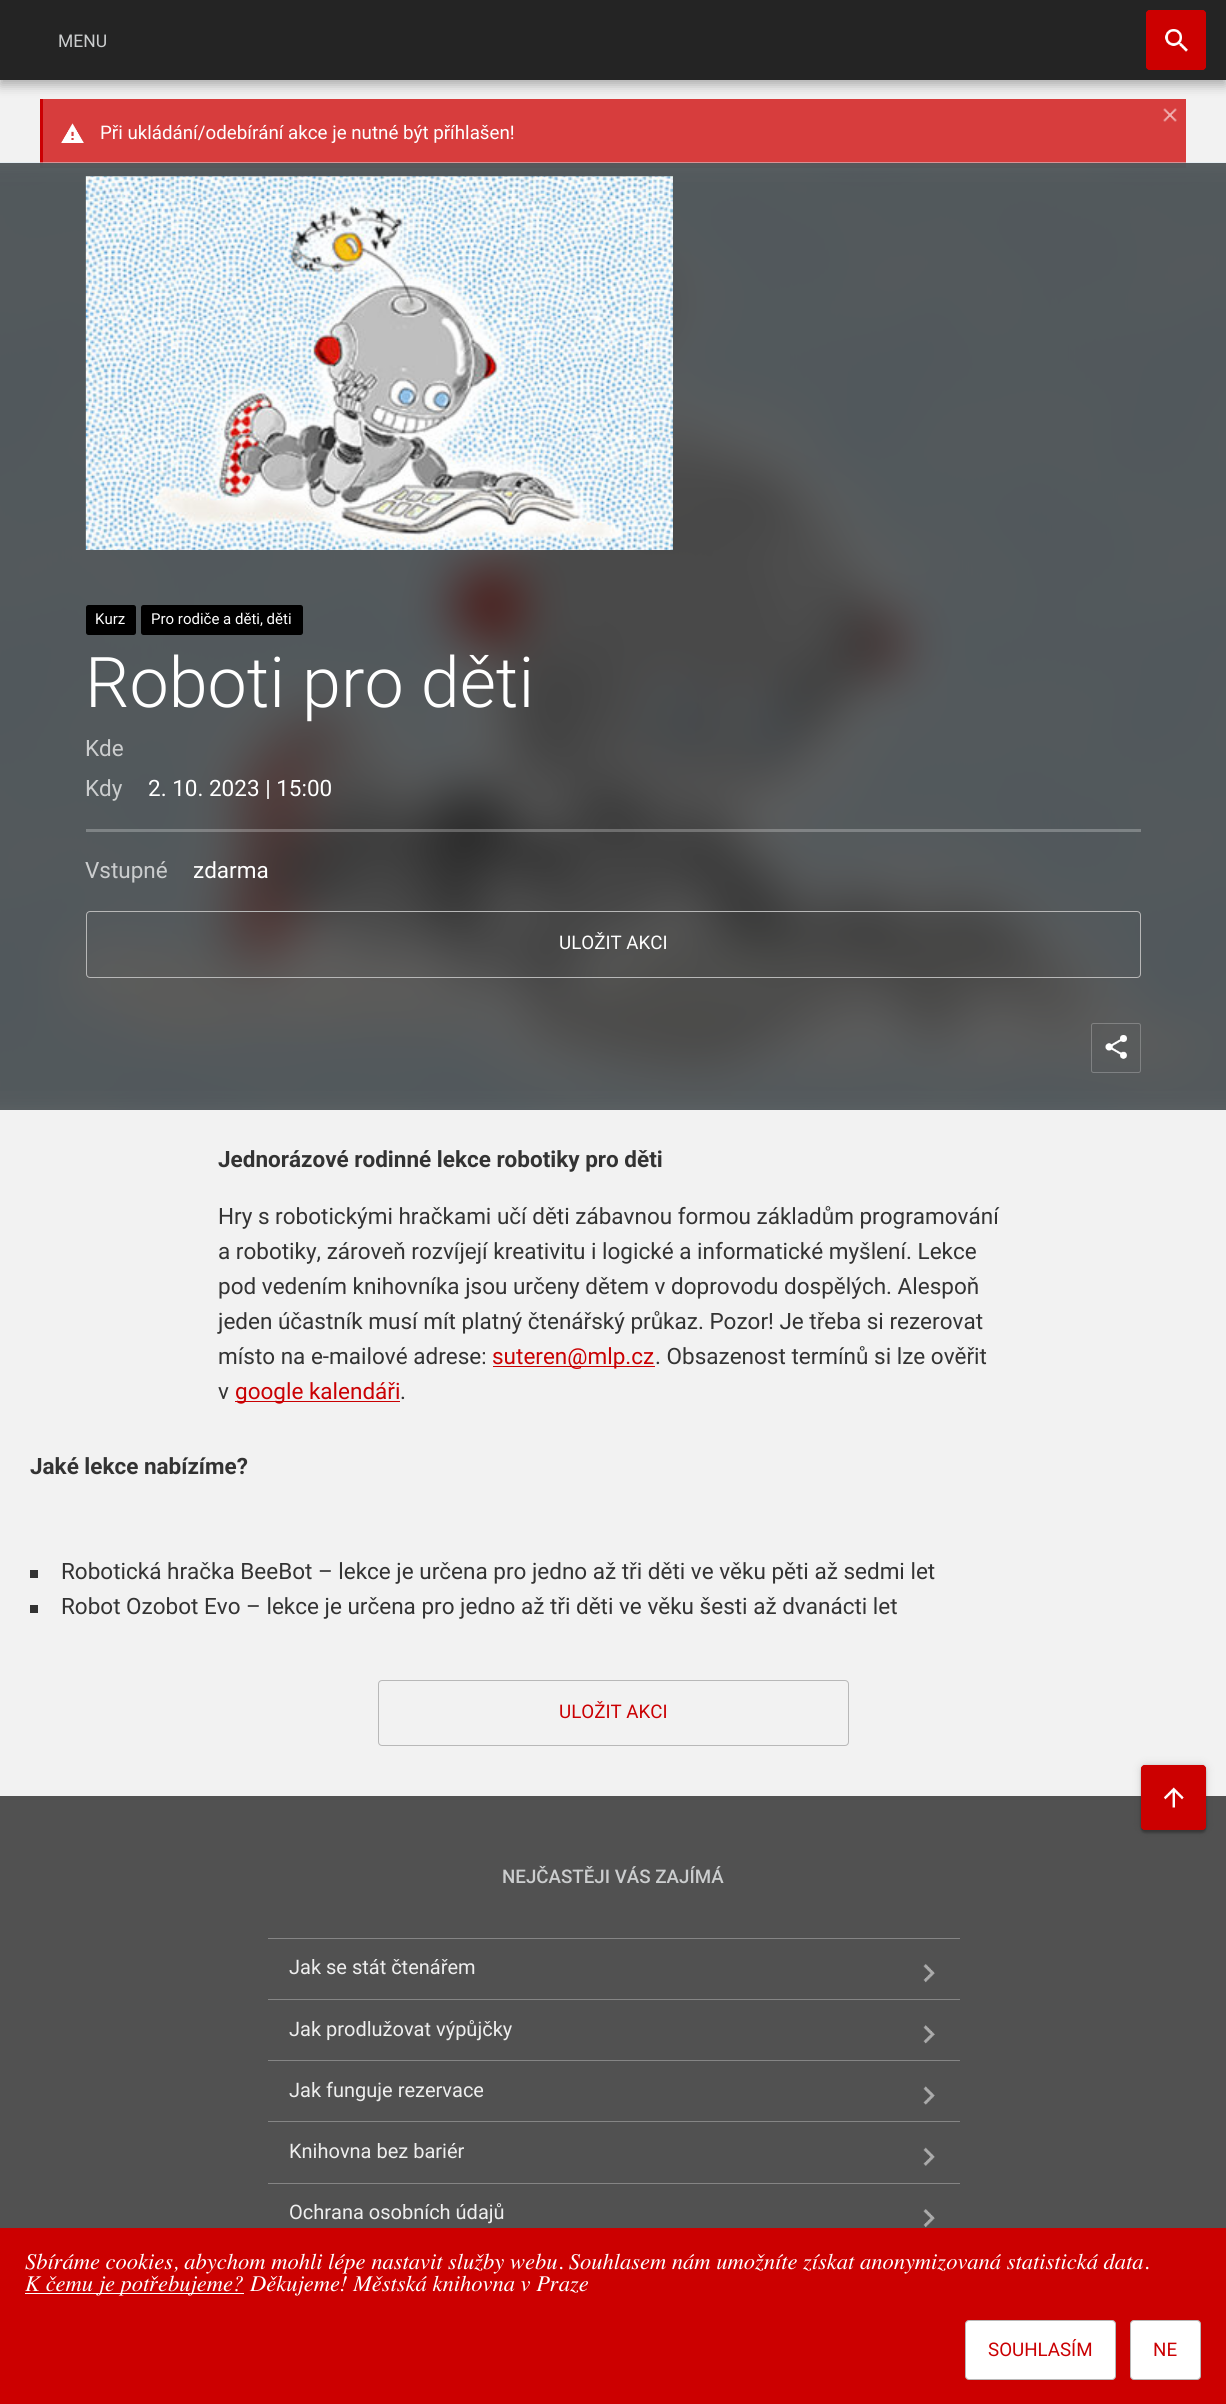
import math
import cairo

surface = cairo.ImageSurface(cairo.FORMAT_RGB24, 1226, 2404)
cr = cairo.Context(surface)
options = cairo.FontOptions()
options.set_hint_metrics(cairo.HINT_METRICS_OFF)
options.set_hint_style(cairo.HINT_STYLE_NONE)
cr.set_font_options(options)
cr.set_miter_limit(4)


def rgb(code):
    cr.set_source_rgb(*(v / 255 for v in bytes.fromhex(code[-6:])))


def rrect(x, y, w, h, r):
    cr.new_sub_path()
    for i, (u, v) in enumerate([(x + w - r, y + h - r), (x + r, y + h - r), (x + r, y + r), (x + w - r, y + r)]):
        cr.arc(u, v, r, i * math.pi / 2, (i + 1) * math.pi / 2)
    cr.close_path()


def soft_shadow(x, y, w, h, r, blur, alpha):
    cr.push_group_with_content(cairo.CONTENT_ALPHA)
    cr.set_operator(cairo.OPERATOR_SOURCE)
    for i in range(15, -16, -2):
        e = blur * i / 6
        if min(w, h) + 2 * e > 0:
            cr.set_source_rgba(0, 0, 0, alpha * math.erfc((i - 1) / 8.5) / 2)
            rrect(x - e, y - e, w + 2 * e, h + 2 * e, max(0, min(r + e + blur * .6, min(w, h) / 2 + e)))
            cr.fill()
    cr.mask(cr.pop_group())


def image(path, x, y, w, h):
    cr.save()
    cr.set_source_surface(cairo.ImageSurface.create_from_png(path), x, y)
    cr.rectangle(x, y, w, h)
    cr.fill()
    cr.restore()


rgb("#f2f2f2")
cr.paint()
rgb("#d73d3d")
cr.rectangle(43, 99, 1143, 69)
cr.fill()
rgb("#cb0003")
cr.rectangle(40, 99, 3, 69)
cr.fill()
rgb("#000000")
soft_shadow(0, 5, 1226, 80, 0, 6, 0.3)
rgb("#242424")
cr.rectangle(0, 0, 1226, 80)
cr.fill()
rgb("#cc0000")
rrect(1146, 10, 60, 60, 4)
cr.fill()
image("img/1.png", 1165, 29, 23, 23)
rrect(1146.5, 10.5, 59, 59, 3.5)
cr.set_line_width(1)
cr.stroke()
image("img/2.png", 61, 123, 23, 20)
image("img/3.png", 1163, 108, 14, 14)
image("img/4.png", 0, 162, 1226, 948)
image("img/5.png", 85, 176, 588, 374)
rgb("#000000")
rrect(86, 605, 50, 30, 2.5)
cr.fill()
rrect(141, 605, 162, 30, 2.5)
cr.fill()
image("img/6.png", 1105, 1035, 22, 24)
rrect(1091.5, 1023.5, 49, 49, 2)
cr.set_source_rgba(1, 1, 1, 0.24)
cr.stroke()
cr.set_source_rgba(1, 1, 1, 0.25)
cr.rectangle(86, 829, 1055, 3)
cr.fill()
rrect(86.5, 911.5, 1054, 66, 3.5)
rgb("#b8b8b8")
cr.stroke()
for x, y, w, h, color in [
    (493, 1366, 162, 1, "#ca0002"),
    (235, 1401, 165, 1, "#ca0002"),
    (30, 1570, 8, 8, "#333333"),
    (30, 1605, 8, 8, "#333333"),
]:
    rgb(color)
    cr.rectangle(x, y, w, h)
    cr.fill()
rrect(378.5, 1680.5, 470, 65, 3.5)
rgb("#b8b8b8")
cr.stroke()
rgb("#515151")
cr.rectangle(0, 1796, 1226, 432)
cr.fill()
rgb("#000000")
soft_shadow(1141, 1765, 65, 65, 4, 1, 0.12)
soft_shadow(1141, 1768, 65, 65, 4, 1, 0.24)
soft_shadow(1141, 1765, 65, 65, 4, 5, 0.12)
rgb("#cc0000")
rrect(1141, 1765, 65, 65, 4)
cr.fill()
image("img/7.png", 1163, 1787, 21, 21)
rrect(1141.5, 1765.5, 64, 64, 3.5)
cr.stroke()
rgb("#858585")
cr.rectangle(268, 1938, 692, 1)
cr.fill()
cr.rectangle(268, 1999, 692, 1)
cr.fill()
image("img/8.png", 923, 1964, 12, 19)
cr.rectangle(268, 2060, 692, 1)
cr.fill()
image("img/9.png", 923, 2025, 12, 19)
cr.rectangle(268, 2121, 692, 1)
cr.fill()
image("img/10.png", 923, 2086, 12, 19)
cr.rectangle(268, 2183, 692, 1)
cr.fill()
image("img/11.png", 923, 2147, 12, 19)
image("img/8.png", 923, 2209, 12, 19)
rgb("#cc0000")
cr.rectangle(0, 2228, 1226, 176)
cr.fill()
rgb("#ffffff")
cr.rectangle(25, 2293, 219, 1)
cr.fill()
rrect(965.5, 2320.5, 150, 59, 3.5)
cr.fill_preserve()
rgb("#b8b8b8")
cr.stroke()
rgb("#ffffff")
rrect(1130.5, 2320.5, 70, 59, 3.5)
cr.fill_preserve()
rgb("#b8b8b8")
cr.stroke()
cr.select_font_face("Roboto")
cr.set_font_size(17.5)
rgb("#cbcdce")
cr.move_to(58, 47)
cr.show_text("MENU")
cr.set_font_size(18.75)
rgb("#ffffff")
cr.move_to(100, 139)
cr.show_text("Při ukládání/odebírání akce je nutné být příhlašen!")
cr.set_font_size(15)
cr.move_to(95, 624)
cr.show_text("Kurz")
cr.move_to(151, 624)
cr.show_text("Pro rodiče a děti, děti")
cr.select_font_face("Roboto Light")
cr.set_font_size(70)
cr.move_to(85, 707)
cr.show_text("Roboti pro děti")
cr.select_font_face("Roboto")
cr.set_font_size(22.5)
rgb("#cbcdce")
cr.move_to(85, 756)
cr.show_text("Kde")
cr.move_to(85, 796)
cr.show_text("Kdy")
rgb("#ffffff")
cr.move_to(148, 796)
cr.show_text("2. 10. 2023 | 15:00")
rgb("#cbcdce")
cr.move_to(85, 878)
cr.show_text("Vstupné")
rgb("#ffffff")
cr.move_to(193, 878)
cr.show_text("zdarma")
cr.set_font_size(18.75)
cr.move_to(559, 949)
cr.show_text("ULOŽIT AKCI")
cr.select_font_face("Roboto", cairo.FONT_SLANT_NORMAL, cairo.FONT_WEIGHT_BOLD)
cr.set_font_size(22.5)
rgb("#333333")
cr.move_to(218, 1167)
cr.show_text("Jednorázové rodinné lekce robotiky pro děti")
cr.select_font_face("Roboto")
for x, y, s in [
    (218, 1224, "Hry s robotickými hračkami učí děti zábavnou formou základům programování"),
    (218, 1259, "a robotiky, zároveň rozvíjejí kreativitu i logické a informatické myšlení. Lekce"),
    (218, 1294, "pod vedením knihovníka jsou určeny dětem v doprovodu dospělých. Alespoň"),
    (218, 1329, "jeden účastník musí mít platný čtenářský průkaz. Pozor! Je třeba si rezerovat"),
    (218, 1364, "místo na e-mailové adrese:"),
]:
    cr.move_to(x, y)
    cr.show_text(s)
rgb("#ca0002")
cr.move_to(492, 1364)
cr.show_text("suteren@mlp.cz")
rgb("#333333")
cr.move_to(655, 1364)
cr.show_text(". Obsazenost termínů si lze ověřit")
cr.move_to(218, 1399)
cr.show_text("v")
rgb("#ca0002")
cr.move_to(235, 1399)
cr.show_text("google kalendáři")
rgb("#333333")
cr.move_to(400, 1399)
cr.show_text(".")
cr.select_font_face("Roboto", cairo.FONT_SLANT_NORMAL, cairo.FONT_WEIGHT_BOLD)
cr.move_to(30, 1474)
cr.show_text("Jaké lekce nabízíme?")
cr.select_font_face("Roboto")
cr.move_to(61, 1579)
cr.show_text("Robotická hračka BeeBot – lekce je určena pro jedno až tři děti ve věku pěti až sedmi let")
cr.move_to(61, 1614)
cr.show_text("Robot Ozobot Evo – lekce je určena pro jedno až tři děti ve věku šesti až dvanácti let")
cr.set_font_size(18.75)
rgb("#ca0002")
cr.move_to(559, 1718)
cr.show_text("ULOŽIT AKCI")
cr.select_font_face("Roboto Medium")
rgb("#cbcdce")
cr.move_to(502, 1883)
cr.show_text("NEJČASTĚJI VÁS ZAJÍMÁ")
cr.select_font_face("Roboto")
cr.set_font_size(20)
rgb("#eeeeee")
for x, y, s in [
    (289, 1974, "Jak se stát čtenářem"),
    (289, 2036, "Jak prodlužovat výpůjčky"),
    (289, 2097, "Jak funguje rezervace"),
    (289, 2158, "Knihovna bez bariér"),
    (289, 2219, "Ochrana osobních údajů"),
]:
    cr.move_to(x, y)
    cr.show_text(s)
cr.select_font_face("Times", cairo.FONT_SLANT_ITALIC)
cr.set_font_size(22.5)
rgb("#ffffff")
for x, y, s in [
    (25, 2269, "Sbíráme cookies, abychom mohli lépe nastavit služby webu. Souhlasem nám umožníte získat anonymizovaná statistická data."),
    (25, 2291, "K čemu je potřebujeme?"),
    (250, 2291, "Děkujeme! Městská knihovna v Praze"),
]:
    cr.move_to(x, y)
    cr.show_text(s)
cr.select_font_face("Roboto")
cr.set_font_size(18.75)
rgb("#ca0002")
cr.move_to(988, 2356)
cr.show_text("SOUHLASÍM")
cr.move_to(1153, 2356)
cr.show_text("NE")
surface.write_to_png("page.png")
